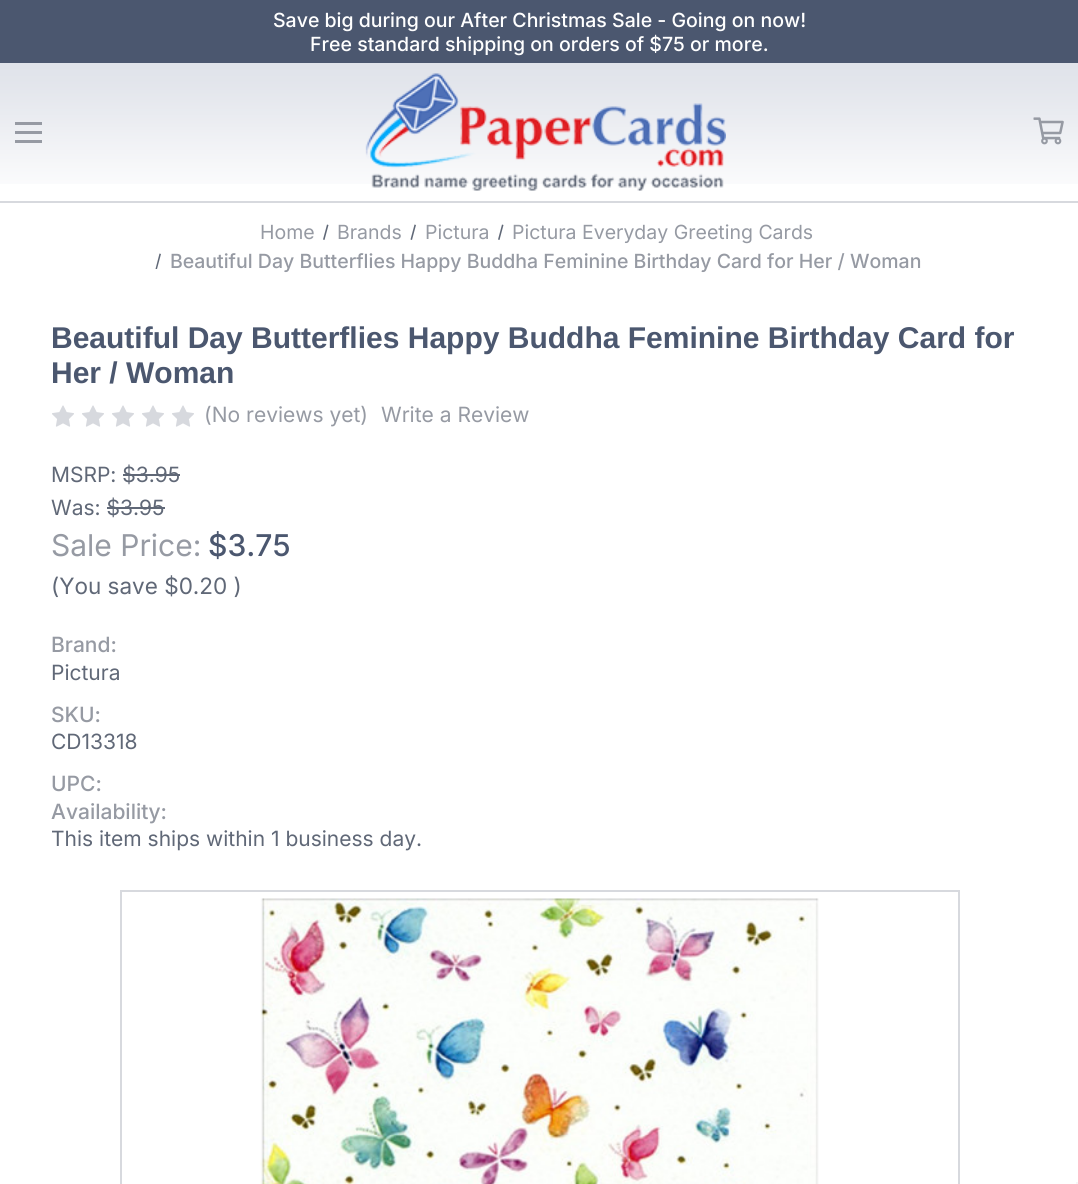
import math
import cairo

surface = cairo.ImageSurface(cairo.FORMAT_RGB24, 1078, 1184)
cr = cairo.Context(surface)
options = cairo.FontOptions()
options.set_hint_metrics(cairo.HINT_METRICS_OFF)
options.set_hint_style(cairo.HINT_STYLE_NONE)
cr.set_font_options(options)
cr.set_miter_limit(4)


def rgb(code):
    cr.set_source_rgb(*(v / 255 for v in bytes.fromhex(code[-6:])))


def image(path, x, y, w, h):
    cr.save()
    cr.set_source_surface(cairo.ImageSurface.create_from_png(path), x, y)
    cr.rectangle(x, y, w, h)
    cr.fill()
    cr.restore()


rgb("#ffffff")
cr.paint()
rgb("#d7d9de")
cr.rectangle(0, 201, 1078, 2)
cr.fill()
rgb("#4b576f")
cr.rectangle(0, 0, 1078, 63)
cr.fill()
image("img/1.png", 0, 63, 1078, 121)
for x, y, w, h, color in [
    (15, 131, 27, 3, "#969aa3"),
    (15, 122, 27, 3, "#969aa3"),
    (15, 140, 27, 3, "#969aa3"),
]:
    rgb(color)
    cr.rectangle(x, y, w, h)
    cr.fill()
image("img/2.png", 365, 73, 361, 118)
image("img/3.png", 1033, 117, 31, 28)
rgb("#606877")
cr.new_path()
cr.move_to(327, 224.5)
cr.line_to(328.5, 225)
cr.line_to(324.5, 240)
cr.line_to(323, 239.5)
cr.close_path()
cr.fill()
cr.new_path()
cr.move_to(414.5, 224.5)
cr.line_to(416, 225)
cr.line_to(412, 240)
cr.line_to(410.5, 239.5)
cr.close_path()
cr.fill()
cr.new_path()
cr.move_to(502, 224.5)
cr.line_to(503.5, 225)
cr.line_to(499.5, 240)
cr.line_to(498, 239.5)
cr.close_path()
cr.fill()
cr.new_path()
cr.move_to(159.5, 253.5)
cr.line_to(161, 254)
cr.line_to(157, 269)
cr.line_to(155.5, 269)
cr.close_path()
cr.fill()
image("img/4.png", 52, 405, 22, 22)
image("img/4.png", 82, 405, 22, 22)
image("img/4.png", 112, 405, 22, 22)
image("img/4.png", 142, 405, 22, 22)
image("img/4.png", 172, 405, 22, 22)
cr.rectangle(123, 474, 57, 2)
cr.fill()
cr.rectangle(107, 507, 58, 2)
cr.fill()
cr.rectangle(121, 891, 838, 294)
rgb("#d7d9de")
cr.stroke()
image("img/5.png", 260, 898, 559, 286)
rgb("#f5f5f5")
cr.rectangle(1076, 1182, 2, 2)
cr.fill()
cr.select_font_face("Inter Medium")
cr.set_font_size(19.5)
rgb("#ffffff")
cr.move_to(273, 27)
cr.show_text("Save big during our After Christmas Sale - Going on now!")
cr.move_to(310, 51)
cr.show_text("Free standard shipping on orders of $75 or more.")
cr.select_font_face("Inter")
rgb("#969aa3")
for x, y, s in [
    (260, 239, "Home"),
    (337, 239, "Brands"),
    (425, 239, "Pictura"),
    (512, 239, "Pictura Everyday Greeting Cards"),
]:
    cr.move_to(x, y)
    cr.show_text(s)
cr.select_font_face("Inter Medium")
cr.move_to(170, 268)
cr.show_text("Beautiful Day Butterflies Happy Buddha Feminine Birthday Card for Her / Woman")
cr.select_font_face("Arimo", cairo.FONT_SLANT_NORMAL, cairo.FONT_WEIGHT_BOLD)
cr.set_font_size(30)
rgb("#4b576f")
cr.move_to(51, 348)
cr.show_text("Beautiful Day Butterflies Happy Buddha Feminine Birthday Card for")
cr.move_to(51, 383)
cr.show_text("Her / Woman")
cr.select_font_face("Inter")
cr.set_font_size(21)
rgb("#969aa3")
cr.move_to(204, 422)
cr.show_text("(No reviews yet)")
cr.move_to(381, 422)
cr.show_text("Write a Review")
rgb("#606877")
cr.move_to(51, 482)
cr.show_text("MSRP: $3.95")
cr.move_to(51, 515)
cr.show_text("Was: $3.95")
cr.set_font_size(30)
rgb("#969aa3")
cr.move_to(51, 556)
cr.show_text("Sale Price:")
cr.select_font_face("Inter Medium")
rgb("#4b576f")
cr.move_to(208, 556)
cr.show_text("$3.75")
cr.select_font_face("Inter")
cr.set_font_size(22.5)
rgb("#606877")
cr.move_to(51, 594)
cr.show_text("(You save $0.20 )")
cr.select_font_face("Inter Medium")
cr.set_font_size(21)
rgb("#969aa3")
cr.move_to(51, 652)
cr.show_text("Brand:")
cr.select_font_face("Inter")
rgb("#606877")
cr.move_to(51, 680)
cr.show_text("Pictura")
cr.select_font_face("Inter Medium")
rgb("#969aa3")
cr.move_to(51, 722)
cr.show_text("SKU:")
cr.select_font_face("Inter")
rgb("#606877")
cr.move_to(51, 749)
cr.show_text("CD13318")
cr.select_font_face("Inter Medium")
rgb("#969aa3")
cr.move_to(51, 791)
cr.show_text("UPC:")
cr.move_to(51, 819)
cr.show_text("Availability:")
cr.select_font_face("Inter")
rgb("#606877")
cr.move_to(51, 846)
cr.show_text("This item ships within 1 business day.")
surface.write_to_png("page.png")
